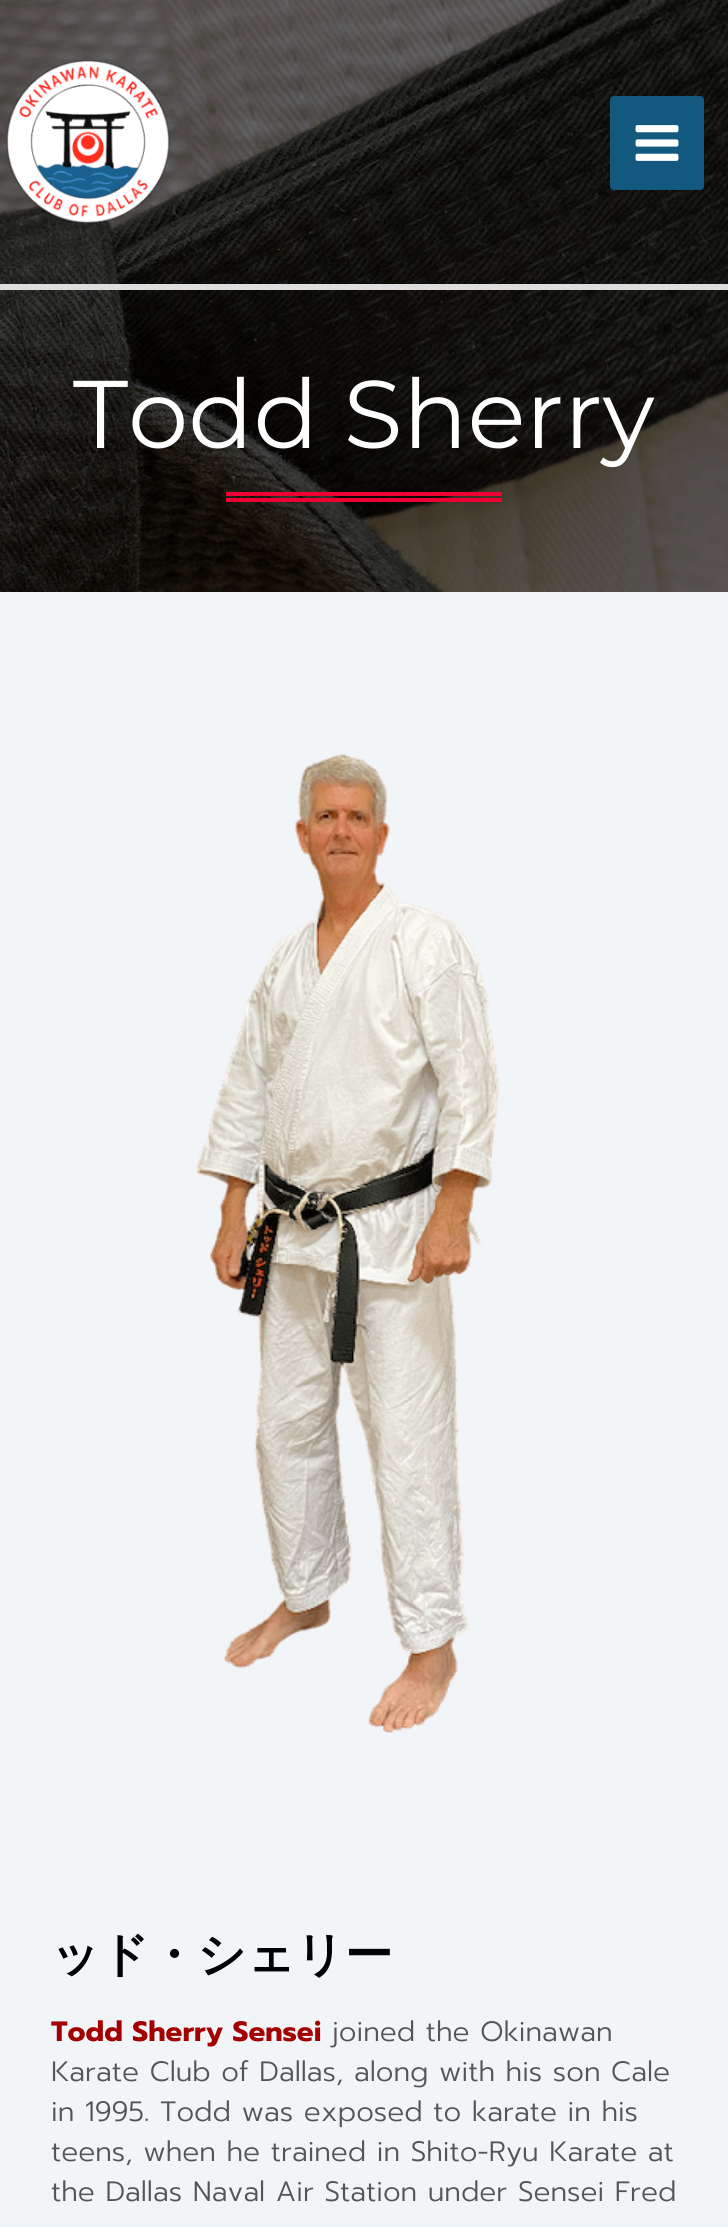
import math
import cairo

surface = cairo.ImageSurface(cairo.FORMAT_RGB24, 728, 2227)
cr = cairo.Context(surface)
options = cairo.FontOptions()
options.set_hint_metrics(cairo.HINT_METRICS_OFF)
options.set_hint_style(cairo.HINT_STYLE_NONE)
cr.set_font_options(options)
cr.set_miter_limit(4)


def rgb(code):
    cr.set_source_rgb(*(v / 255 for v in bytes.fromhex(code[-6:])))


def rrect(x, y, w, h, r):
    cr.new_sub_path()
    for i, (u, v) in enumerate([(x + w - r, y + h - r), (x + r, y + h - r), (x + r, y + r), (x + w - r, y + r)]):
        cr.arc(u, v, r, i * math.pi / 2, (i + 1) * math.pi / 2)
    cr.close_path()


def image(path, x, y, w, h):
    cr.save()
    cr.set_source_surface(cairo.ImageSurface.create_from_png(path), x, y)
    cr.rectangle(x, y, w, h)
    cr.fill()
    cr.restore()


rgb("#f2f5f7")
cr.paint()
image("img/3.png", 0, 0, 728, 592)
rgb("#dddddd")
cr.rectangle(0, 284, 728, 6)
cr.fill()
image("img/1.png", 6, 60, 164, 163)
rgb("#13597f")
rrect(610, 96, 94, 94, 4)
cr.fill()
image("img/2.png", 635, 125, 44, 36)
rgb("#ed0233")
cr.rectangle(226, 492, 276, 4)
cr.fill()
cr.rectangle(226, 498, 276, 4)
cr.fill()
image("img/4.png", 196, 754, 304, 979)
cr.select_font_face("Montserrat Thin")
cr.set_font_size(96)
rgb("#ffffff")
cr.move_to(73, 448)
cr.show_text("Todd Sherry")
cr.select_font_face("WenQuanYi Zen Hei", cairo.FONT_SLANT_NORMAL, cairo.FONT_WEIGHT_BOLD)
cr.set_font_size(48)
rgb("#000000")
cr.move_to(51, 1971)
cr.show_text("ッド・シェリー")
cr.select_font_face("Prompt", cairo.FONT_SLANT_NORMAL, cairo.FONT_WEIGHT_BOLD)
cr.set_font_size(28)
rgb("#a30101")
cr.move_to(51, 2041)
cr.show_text("Todd Sherry Sensei")
cr.select_font_face("Prompt Light")
rgb("#555555")
for x, y, s in [
    (332, 2041, "joined the Okinawan"),
    (51, 2081, "Karate Club of Dallas, along with his son Cale"),
    (51, 2121, "in 1995. Todd was exposed to karate in his"),
    (51, 2161, "teens, when he trained in Shito-Ryu Karate at"),
    (51, 2201, "the Dallas Naval Air Station under Sensei Fred"),
]:
    cr.move_to(x, y)
    cr.show_text(s)
surface.write_to_png("page.png")
